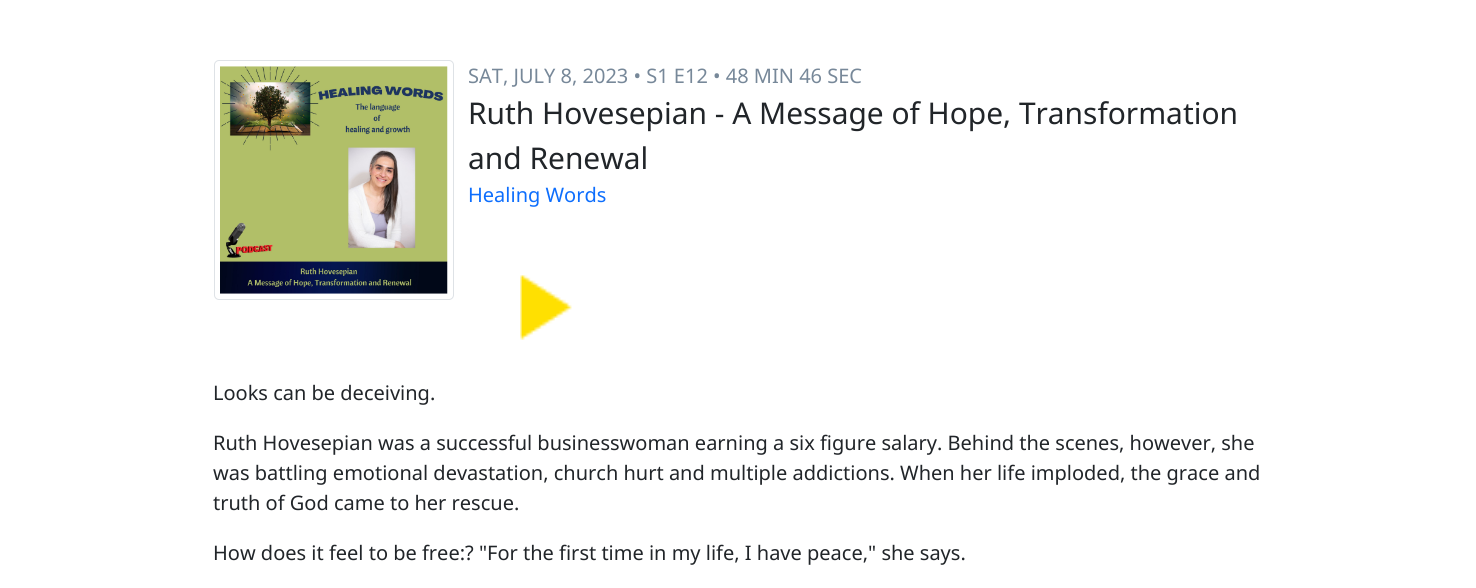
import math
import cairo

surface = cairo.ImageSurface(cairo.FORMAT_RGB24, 1476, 588)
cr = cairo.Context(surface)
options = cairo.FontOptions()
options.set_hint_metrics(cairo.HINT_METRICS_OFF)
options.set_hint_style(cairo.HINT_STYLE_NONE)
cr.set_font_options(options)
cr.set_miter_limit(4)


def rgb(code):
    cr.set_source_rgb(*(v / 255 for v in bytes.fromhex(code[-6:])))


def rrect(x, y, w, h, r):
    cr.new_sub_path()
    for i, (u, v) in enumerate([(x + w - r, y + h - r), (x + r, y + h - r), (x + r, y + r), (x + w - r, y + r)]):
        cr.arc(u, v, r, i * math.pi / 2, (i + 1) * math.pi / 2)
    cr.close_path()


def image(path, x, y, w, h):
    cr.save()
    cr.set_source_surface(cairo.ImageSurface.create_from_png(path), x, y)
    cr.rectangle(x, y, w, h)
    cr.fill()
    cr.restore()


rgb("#ffffff")
cr.paint()
rrect(214.5, 60.5, 239, 239, 4.5)
rgb("#dee2e6")
cr.set_line_width(1)
cr.stroke()
image("img/1.png", 220, 66, 228, 228)
image("img/2.png", 520, 275, 52, 65)
cr.select_font_face("Noto Sans")
cr.set_font_size(20)
rgb("#778899")
cr.move_to(468, 83)
cr.show_text("SAT, JULY 8, 2023 • S1 E12 • 48 MIN 46 SEC")
cr.set_font_size(29.9)
rgb("#212529")
cr.move_to(468, 124)
cr.show_text("Ruth Hovesepian - A Message of Hope, Transformation")
cr.move_to(468, 169)
cr.show_text("and Renewal")
cr.set_font_size(20)
rgb("#0d6efd")
cr.move_to(468, 202)
cr.show_text("Healing Words")
rgb("#212529")
for x, y, s in [
    (213, 400, "Looks can be deceiving."),
    (213, 450, "Ruth Hovesepian was a successful businesswoman earning a six figure salary. Behind the scenes, however, she"),
    (213, 480, "was battling emotional devastation, church hurt and multiple addictions. When her life imploded, the grace and"),
    (213, 510, "truth of God came to her rescue."),
    (213, 560, "How does it feel to be free:? \"For the first time in my life, I have peace,\" she says."),
]:
    cr.move_to(x, y)
    cr.show_text(s)
surface.write_to_png("page.png")
